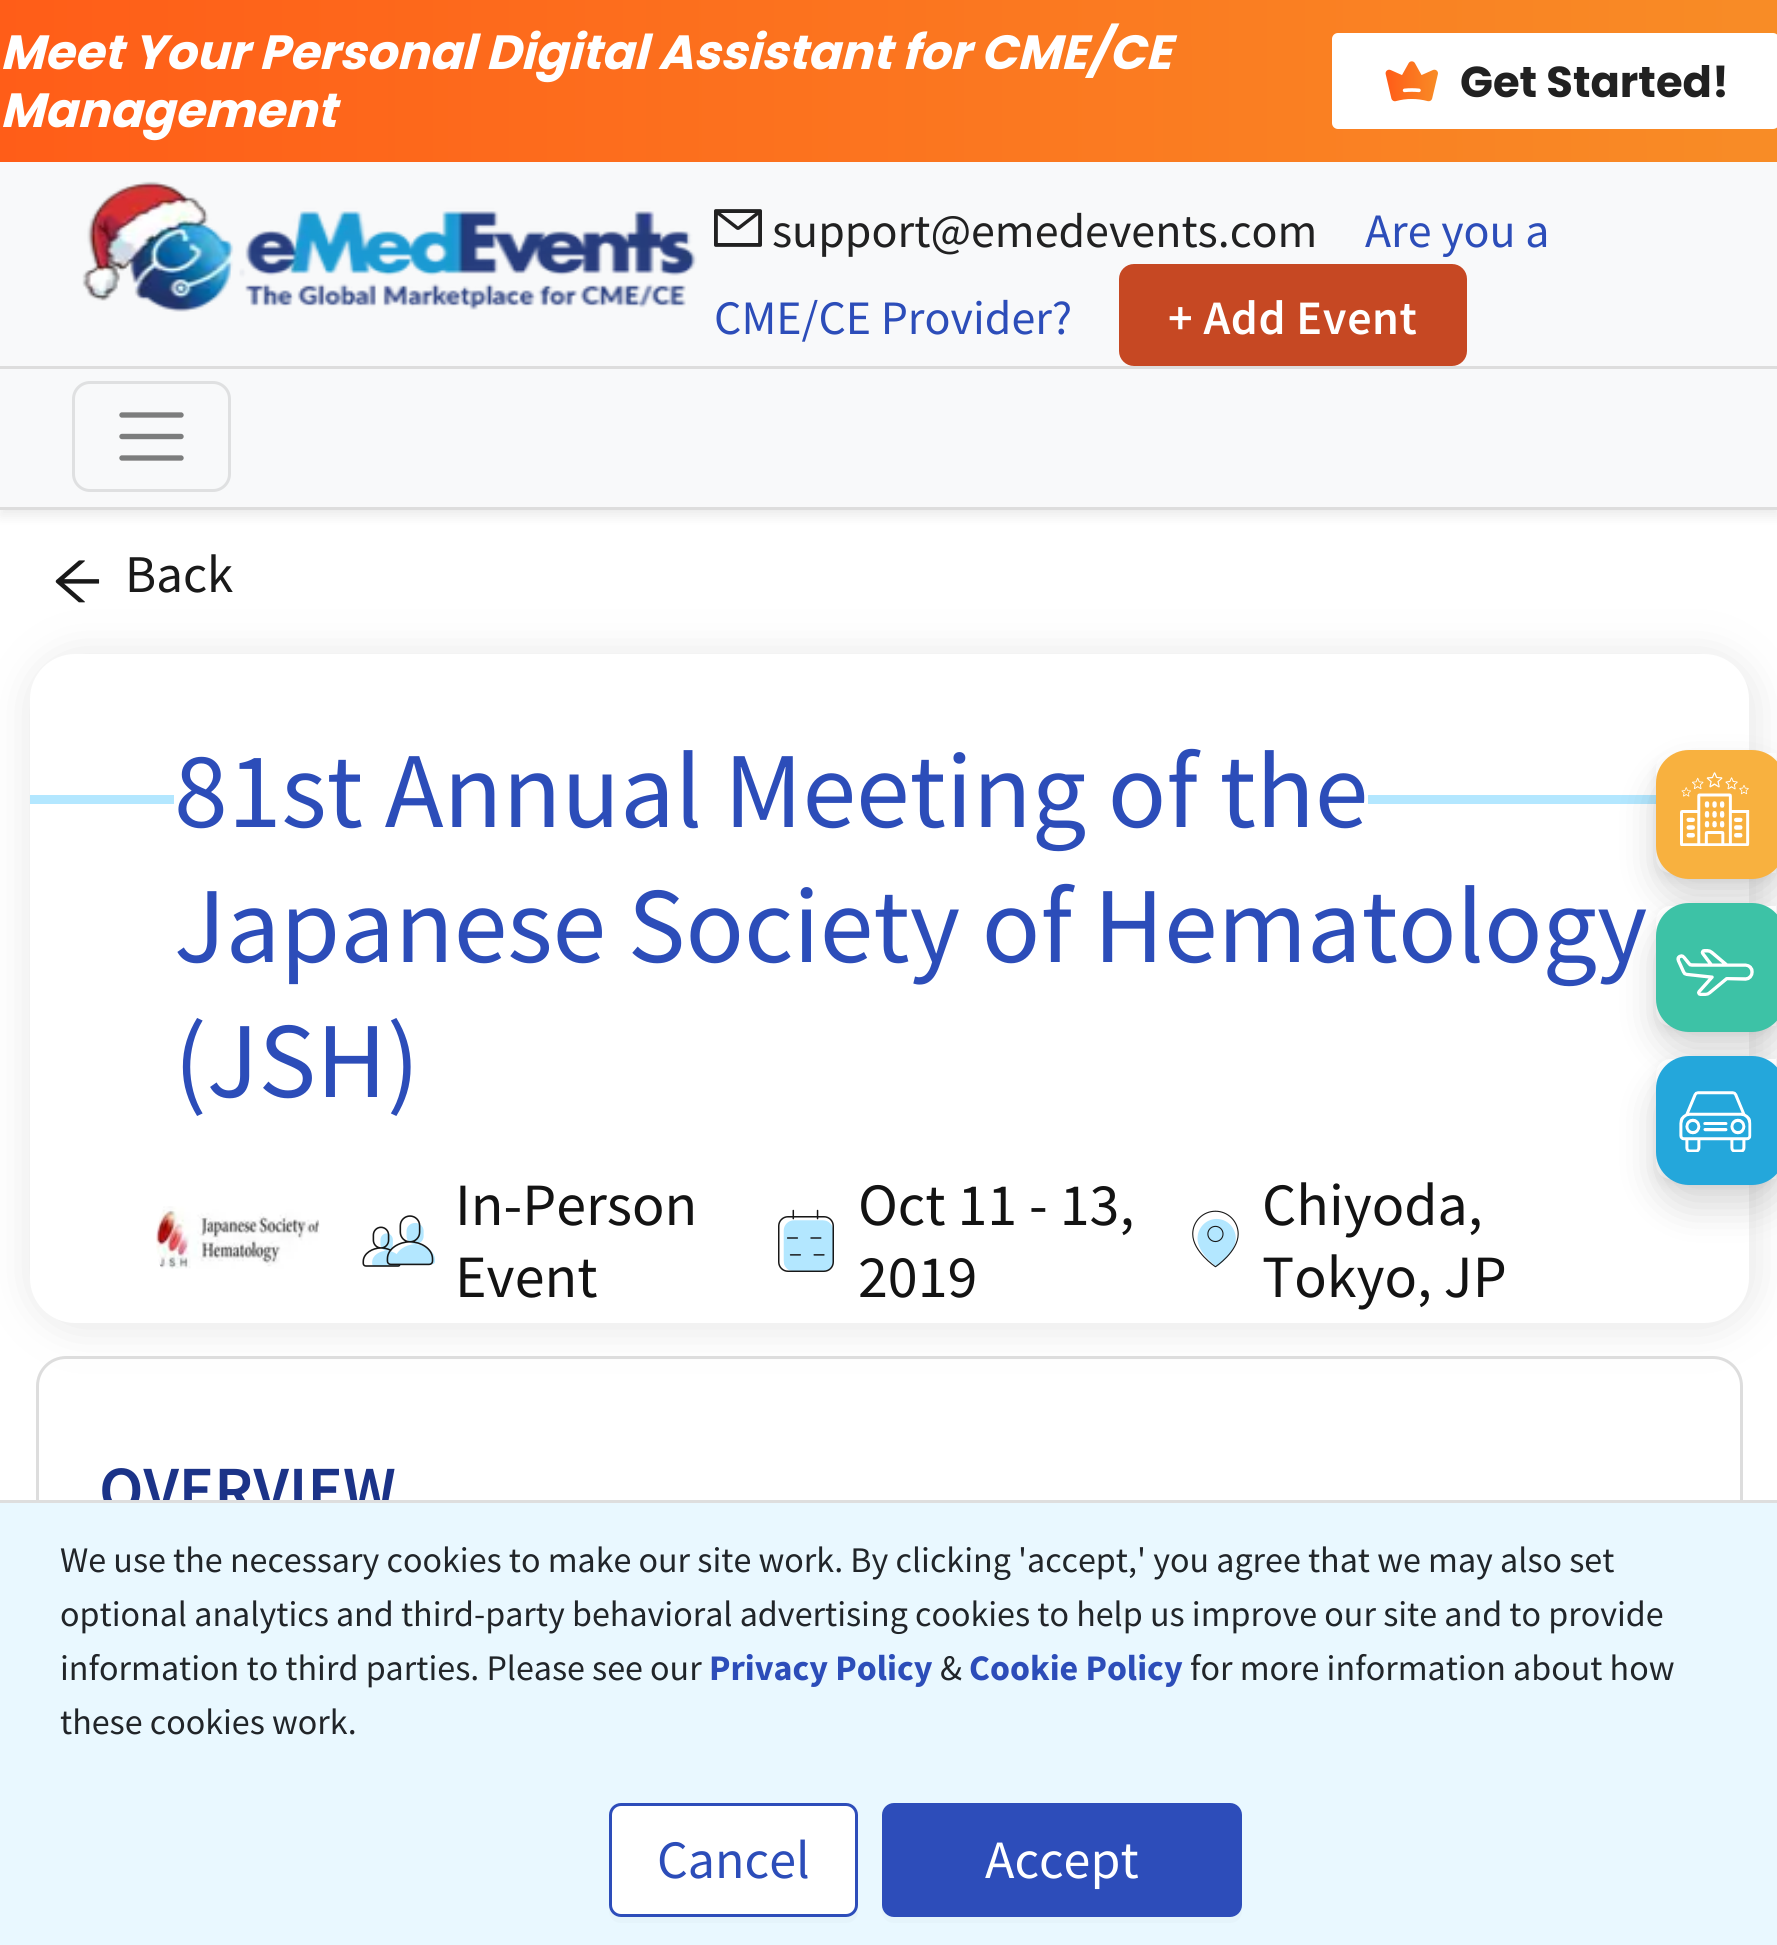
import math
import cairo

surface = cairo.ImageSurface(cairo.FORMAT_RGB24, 1777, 1945)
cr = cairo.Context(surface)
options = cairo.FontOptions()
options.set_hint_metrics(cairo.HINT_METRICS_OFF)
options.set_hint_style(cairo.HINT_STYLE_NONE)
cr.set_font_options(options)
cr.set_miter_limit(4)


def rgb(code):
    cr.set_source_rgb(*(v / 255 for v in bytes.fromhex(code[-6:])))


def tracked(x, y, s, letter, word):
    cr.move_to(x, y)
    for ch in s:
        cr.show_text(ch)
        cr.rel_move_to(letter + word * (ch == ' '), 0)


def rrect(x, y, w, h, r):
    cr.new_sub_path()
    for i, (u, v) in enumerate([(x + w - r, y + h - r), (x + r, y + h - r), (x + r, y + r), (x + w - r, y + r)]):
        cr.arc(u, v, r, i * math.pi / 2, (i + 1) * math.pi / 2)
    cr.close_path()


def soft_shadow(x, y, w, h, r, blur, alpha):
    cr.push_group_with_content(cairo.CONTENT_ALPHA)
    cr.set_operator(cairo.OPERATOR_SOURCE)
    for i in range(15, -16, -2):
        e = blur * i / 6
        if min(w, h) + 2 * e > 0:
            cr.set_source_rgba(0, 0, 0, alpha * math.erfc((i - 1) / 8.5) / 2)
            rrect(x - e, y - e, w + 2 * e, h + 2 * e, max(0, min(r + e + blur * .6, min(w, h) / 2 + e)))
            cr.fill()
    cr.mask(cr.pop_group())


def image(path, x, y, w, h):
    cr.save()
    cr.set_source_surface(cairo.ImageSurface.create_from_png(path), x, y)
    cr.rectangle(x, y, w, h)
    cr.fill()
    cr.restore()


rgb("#ffffff")
cr.paint()
rgb("#000000")
soft_shadow(0, 6, 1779, 510, 0, 6, 0.08)
rgb("#f8f9fa")
cr.rectangle(0, 162, 1777, 345)
cr.fill()
rgb("#dddddd")
cr.rectangle(0, 507, 1777, 3)
cr.fill()
gradient = cairo.LinearGradient(0, 74, 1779, 73)
gradient.add_color_stop_rgba(0, 1, 0.365, 0.094, 1)
gradient.add_color_stop_rgba(1, 0.973, 0.549, 0.149, 1)
cr.set_source(gradient)
cr.rectangle(0, 0, 1777, 162)
cr.fill()
rgb("#ffffff")
rrect(1333.5, 34.5, 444, 93, 4.5)
cr.fill_preserve()
cr.set_line_width(3)
cr.stroke()
image("img/1.png", 1385, 61, 53, 41)
rgb("#dddddd")
cr.rectangle(0, 366, 1777, 3)
cr.fill()
image("img/2.png", 82, 181, 615, 131)
image("img/3.png", 714, 209, 48, 38)
rgb("#c64823")
rrect(1120.5, 265.5, 345, 99, 13.5)
cr.fill_preserve()
cr.stroke()
rrect(73.5, 382.5, 156, 108, 16.5)
rgb("#dfe0e1")
cr.stroke()
cr.new_path()
cr.move_to(122, 415)
cr.line_to(181, 415)
cr.move_to(122, 436.5)
cr.line_to(181, 436.5)
cr.move_to(122, 458)
cr.line_to(181, 458)
rgb("#7c7d7d")
cr.set_line_width(5.4)
cr.set_line_cap(cairo.LINE_CAP_ROUND)
cr.stroke()
image("img/4.png", 55, 560, 45, 43)
rgb("#cccccc")
soft_shadow(33, 657, 1719, 669, 45, 22.5, 0.53)
rgb("#ffffff")
rrect(30, 654, 1719, 669, 45)
cr.fill()
rgb("#b3e7ff")
cr.rectangle(30, 795, 1626, 9)
cr.fill()
rgb("#ffffff")
cr.rectangle(174, 795, 1194, 9)
cr.fill()
image("img/5.png", 156, 1206, 164, 63)
image("img/6.png", 362, 1215, 73, 52)
image("img/7.png", 778, 1209, 56, 63)
image("img/8.png", 1192, 1210, 47, 58)
rrect(37.5, 1357.5, 1704, 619, 28.5)
rgb("#dddddd")
cr.set_line_width(3)
cr.set_line_cap(cairo.LINE_CAP_BUTT)
cr.stroke()
rgb("#000000")
soft_shadow(1656, 759, 120, 120, 15, 6, 0.07)
rgb("#ffffff")
cr.new_path()
cr.move_to(1671, 753)
cr.line_to(1776, 753)
cr.line_to(1776, 873)
cr.line_to(1671, 873)
cr.curve_to(1662.5, 873, 1656, 866.5, 1656, 858)
cr.line_to(1656, 768)
cr.curve_to(1656, 759.5, 1662.5, 753, 1671, 753)
cr.close_path()
cr.fill()
rgb("#000000")
soft_shadow(1656, 771, 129, 129, 33, 20, 0.16)
rgb("#f8b13f")
rrect(1656, 750, 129, 129, 33)
cr.fill()
image("img/9.png", 1680, 772, 70, 74)
rgb("#000000")
soft_shadow(1656, 912, 120, 120, 15, 6, 0.07)
rgb("#ffffff")
cr.new_path()
cr.move_to(1671, 906)
cr.line_to(1776, 906)
cr.line_to(1776, 1026)
cr.line_to(1671, 1026)
cr.curve_to(1662.5, 1026, 1656, 1019.5, 1656, 1011)
cr.line_to(1656, 921)
cr.curve_to(1656, 912.5, 1662.5, 906, 1671, 906)
cr.close_path()
cr.fill()
rgb("#000000")
soft_shadow(1656, 924, 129, 129, 33, 20, 0.16)
rgb("#3dc2a6")
rrect(1656, 903, 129, 129, 33)
cr.fill()
image("img/10.png", 1676, 949, 78, 47)
rgb("#000000")
soft_shadow(1656, 1065, 120, 120, 15, 6, 0.07)
rgb("#ffffff")
cr.new_path()
cr.move_to(1671, 1059)
cr.line_to(1776, 1059)
cr.line_to(1776, 1179)
cr.line_to(1671, 1179)
cr.curve_to(1662.5, 1179, 1656, 1172.5, 1656, 1164)
cr.line_to(1656, 1074)
cr.curve_to(1656, 1065.5, 1662.5, 1059, 1671, 1059)
cr.close_path()
cr.fill()
rgb("#000000")
soft_shadow(1656, 1077, 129, 129, 33, 20, 0.16)
rgb("#24a7db")
rrect(1656, 1056, 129, 129, 33)
cr.fill()
image("img/11.png", 1679, 1091, 73, 61)
cr.select_font_face("Poppins", cairo.FONT_SLANT_ITALIC, cairo.FONT_WEIGHT_BOLD)
cr.set_font_size(48)
rgb("#ffffff")
cr.move_to(0, 69)
cr.show_text("Meet Your Personal Digital Assistant for CME/CE")
cr.move_to(0, 127)
cr.show_text("Management")
cr.select_font_face("Poppins", cairo.FONT_SLANT_NORMAL, cairo.FONT_WEIGHT_BOLD)
cr.set_font_size(43.25)
rgb("#212121")
cr.move_to(1460, 97)
cr.show_text("Get Started!")
cr.select_font_face("Source Sans Pro")
cr.set_font_size(48)
cr.move_to(772, 247)
cr.show_text("support@emedevents.com")
rgb("#2c4db9")
cr.move_to(1365, 247)
cr.show_text("Are you a")
cr.move_to(714, 334)
cr.show_text("CME/CE Provider?")
cr.select_font_face("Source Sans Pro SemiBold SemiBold")
rgb("#ffffff")
tracked(1168, 334, "+ Add Event", 0.6, 0)
cr.select_font_face("Source Sans Pro")
cr.set_font_size(53)
rgb("#1a1a1a")
cr.move_to(125, 592)
cr.show_text("Back")
cr.set_font_size(108)
rgb("#2c4db9")
for x, y, s in [
    (174, 827, "81st Annual Meeting of the"),
    (174, 962, "Japanese Society of Hematology"),
    (174, 1097, "(JSH)"),
]:
    cr.move_to(x, y)
    cr.show_text(s)
cr.set_font_size(60)
rgb("#131313")
for x, y, s in [
    (455, 1225, "In-Person"),
    (455, 1297, "Event"),
    (858, 1225, "Oct 11 - 13,"),
    (858, 1297, "2019"),
    (1262, 1225, "Chiyoda,"),
    (1262, 1297, "Tokyo, JP"),
]:
    cr.move_to(x, y)
    cr.show_text(s)
cr.select_font_face("Source Sans Pro SemiBold SemiBold")
cr.set_font_size(66)
rgb("#1b3388")
cr.move_to(99, 1512)
cr.show_text("OVERVIEW")
rgb("#e9f8ff")
cr.rectangle(0, 1503, 1777, 442)
cr.fill()
rgb("#dedede")
cr.rectangle(0, 1500, 1777, 3)
cr.fill()
cr.select_font_face("Source Sans Pro")
cr.set_font_size(36)
rgb("#212529")
for x, y, s in [
    (60, 1572, "We use the necessary cookies to make our site work. By clicking 'accept,' you agree that we may also set"),
    (60, 1626, "optional analytics and third-party behavioral advertising cookies to help us improve our site and to provide"),
    (60, 1680, "information to third parties. Please see our"),
]:
    cr.move_to(x, y)
    cr.show_text(s)
cr.select_font_face("Source Sans Pro", cairo.FONT_SLANT_NORMAL, cairo.FONT_WEIGHT_BOLD)
rgb("#2c4db9")
cr.move_to(709, 1680)
cr.show_text("Privacy Policy")
cr.select_font_face("Source Sans Pro")
rgb("#212529")
cr.move_to(940, 1680)
cr.show_text("&")
cr.select_font_face("Source Sans Pro", cairo.FONT_SLANT_NORMAL, cairo.FONT_WEIGHT_BOLD)
rgb("#2c4db9")
cr.move_to(969, 1680)
cr.show_text("Cookie Policy")
cr.select_font_face("Source Sans Pro")
rgb("#212529")
cr.move_to(1190, 1680)
cr.show_text("for more information about how")
cr.move_to(60, 1734)
cr.show_text("these cookies work.")
rgb("#e5f4fb")
cr.new_path()
cr.move_to(609, 1905)
cr.line_to(609, 1911)
cr.curve_to(609, 1918, 614, 1923, 621, 1923)
cr.line_to(846, 1923)
cr.curve_to(853, 1923, 858, 1918, 858, 1911)
cr.line_to(858, 1905)
cr.curve_to(858, 1912, 853, 1917, 846, 1917)
cr.line_to(621, 1917)
cr.curve_to(614, 1917, 609, 1912, 609, 1905)
cr.close_path()
cr.fill()
rgb("#ffffff")
rrect(610.5, 1804.5, 246, 111, 10.5)
cr.fill_preserve()
rgb("#2d4dba")
cr.stroke()
cr.set_font_size(54)
rgb("#2c4db9")
cr.move_to(657, 1878)
cr.show_text("Cancel")
rgb("#e5f4fb")
cr.new_path()
cr.move_to(882, 1905)
cr.line_to(882, 1911)
cr.curve_to(882, 1918, 887, 1923, 894, 1923)
cr.line_to(1230, 1923)
cr.curve_to(1237, 1923, 1242, 1918, 1242, 1911)
cr.line_to(1242, 1905)
cr.curve_to(1242, 1912, 1237, 1917, 1230, 1917)
cr.line_to(894, 1917)
cr.curve_to(887, 1917, 882, 1912, 882, 1905)
cr.close_path()
cr.fill()
rgb("#2d4dba")
rrect(883.5, 1804.5, 357, 111, 10.5)
cr.fill_preserve()
cr.stroke()
rgb("#ffffff")
cr.move_to(985, 1878)
cr.show_text("Accept")
surface.write_to_png("page.png")
